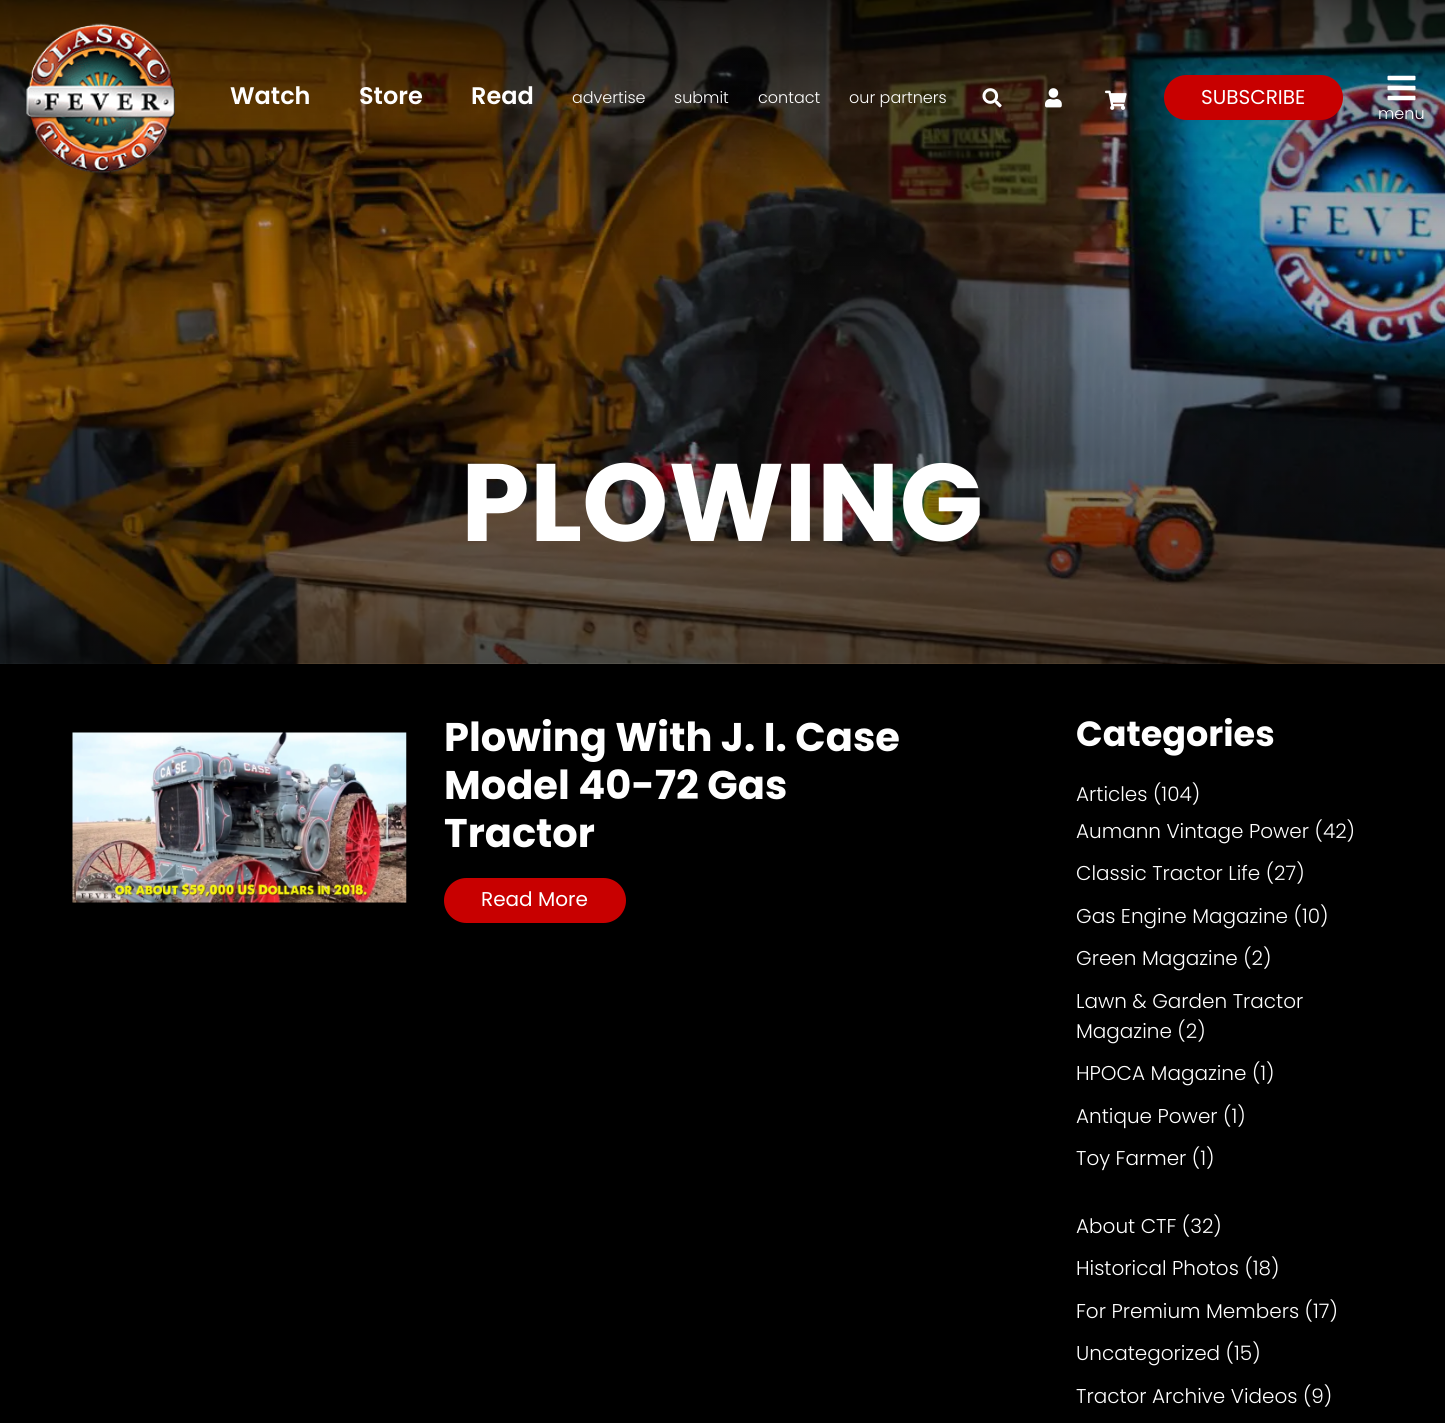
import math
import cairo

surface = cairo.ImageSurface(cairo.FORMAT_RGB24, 1445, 1423)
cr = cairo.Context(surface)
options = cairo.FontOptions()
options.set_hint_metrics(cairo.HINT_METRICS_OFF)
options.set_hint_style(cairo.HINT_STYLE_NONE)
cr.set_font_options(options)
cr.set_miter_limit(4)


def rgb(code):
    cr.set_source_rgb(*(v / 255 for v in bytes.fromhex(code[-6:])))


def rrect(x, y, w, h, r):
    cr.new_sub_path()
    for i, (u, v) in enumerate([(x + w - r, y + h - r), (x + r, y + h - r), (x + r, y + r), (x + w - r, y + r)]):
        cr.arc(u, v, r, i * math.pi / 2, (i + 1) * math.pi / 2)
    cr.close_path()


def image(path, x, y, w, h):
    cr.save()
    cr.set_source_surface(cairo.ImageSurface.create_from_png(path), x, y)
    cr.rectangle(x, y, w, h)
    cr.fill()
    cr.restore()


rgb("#000000")
cr.paint()
image("img/6.png", 0, 0, 1445, 664)
image("img/1.png", 26, 23, 149, 151)
image("img/2.png", 982, 88, 20, 20)
image("img/3.png", 1045, 88, 17, 20)
image("img/4.png", 1105, 90, 22, 20)
rgb("#c80000")
rrect(1164, 75, 179, 45, 22.5)
cr.fill()
image("img/5.png", 1387, 75, 29, 26)
image("img/7.png", 72, 732, 335, 171)
rrect(444, 878, 182, 45, 22.5)
cr.fill()
cr.select_font_face("Poppins SemiBold")
cr.set_font_size(24)
rgb("#ffffff")
for x, y, s in [
    (230, 104, "Watch"),
    (359, 104, "Store"),
    (471, 104, "Read"),
]:
    cr.move_to(x, y)
    cr.show_text(s)
cr.select_font_face("Poppins Light")
cr.set_font_size(16)
for x, y, s in [
    (572, 103, "advertise"),
    (674, 103, "submit"),
    (758, 103, "contact"),
    (849, 103, "our partners"),
]:
    cr.move_to(x, y)
    cr.show_text(s)
cr.select_font_face("Poppins")
cr.set_font_size(20)
cr.move_to(1201, 104)
cr.show_text("SUBSCRIBE")
cr.select_font_face("Poppins Light")
cr.set_font_size(16)
cr.move_to(1378, 119)
cr.show_text("menu")
cr.select_font_face("Poppins", cairo.FONT_SLANT_NORMAL, cairo.FONT_WEIGHT_BOLD)
cr.set_font_size(110)
cr.move_to(461, 541)
cr.show_text("PLOWING")
cr.set_font_size(40)
for x, y, s in [
    (444, 751, "Plowing With J. I. Case"),
    (444, 799, "Model 40-72 Gas"),
    (444, 847, "Tractor"),
]:
    cr.move_to(x, y)
    cr.show_text(s)
cr.select_font_face("Poppins")
cr.set_font_size(20)
cr.move_to(481, 906)
cr.show_text("Read More")
cr.select_font_face("Poppins", cairo.FONT_SLANT_NORMAL, cairo.FONT_WEIGHT_BOLD)
cr.set_font_size(35)
cr.move_to(1076, 746)
cr.show_text("Categories")
cr.select_font_face("Poppins Light")
cr.set_font_size(20)
for x, y, s in [
    (1076, 801, "Articles (104)"),
    (1076, 838, "Aumann Vintage Power (42)"),
    (1076, 880, "Classic Tractor Life (27)"),
    (1076, 923, "Gas Engine Magazine (10)"),
    (1076, 965, "Green Magazine (2)"),
    (1076, 1008, "Lawn & Garden Tractor"),
    (1076, 1038, "Magazine (2)"),
    (1076, 1080, "HPOCA Magazine (1)"),
    (1076, 1123, "Antique Power (1)"),
    (1076, 1165, "Toy Farmer (1)"),
    (1076, 1233, "About CTF (32)"),
    (1076, 1275, "Historical Photos (18)"),
    (1076, 1318, "For Premium Members (17)"),
    (1076, 1360, "Uncategorized (15)"),
    (1076, 1403, "Tractor Archive Videos (9)"),
]:
    cr.move_to(x, y)
    cr.show_text(s)
surface.write_to_png("page.png")
